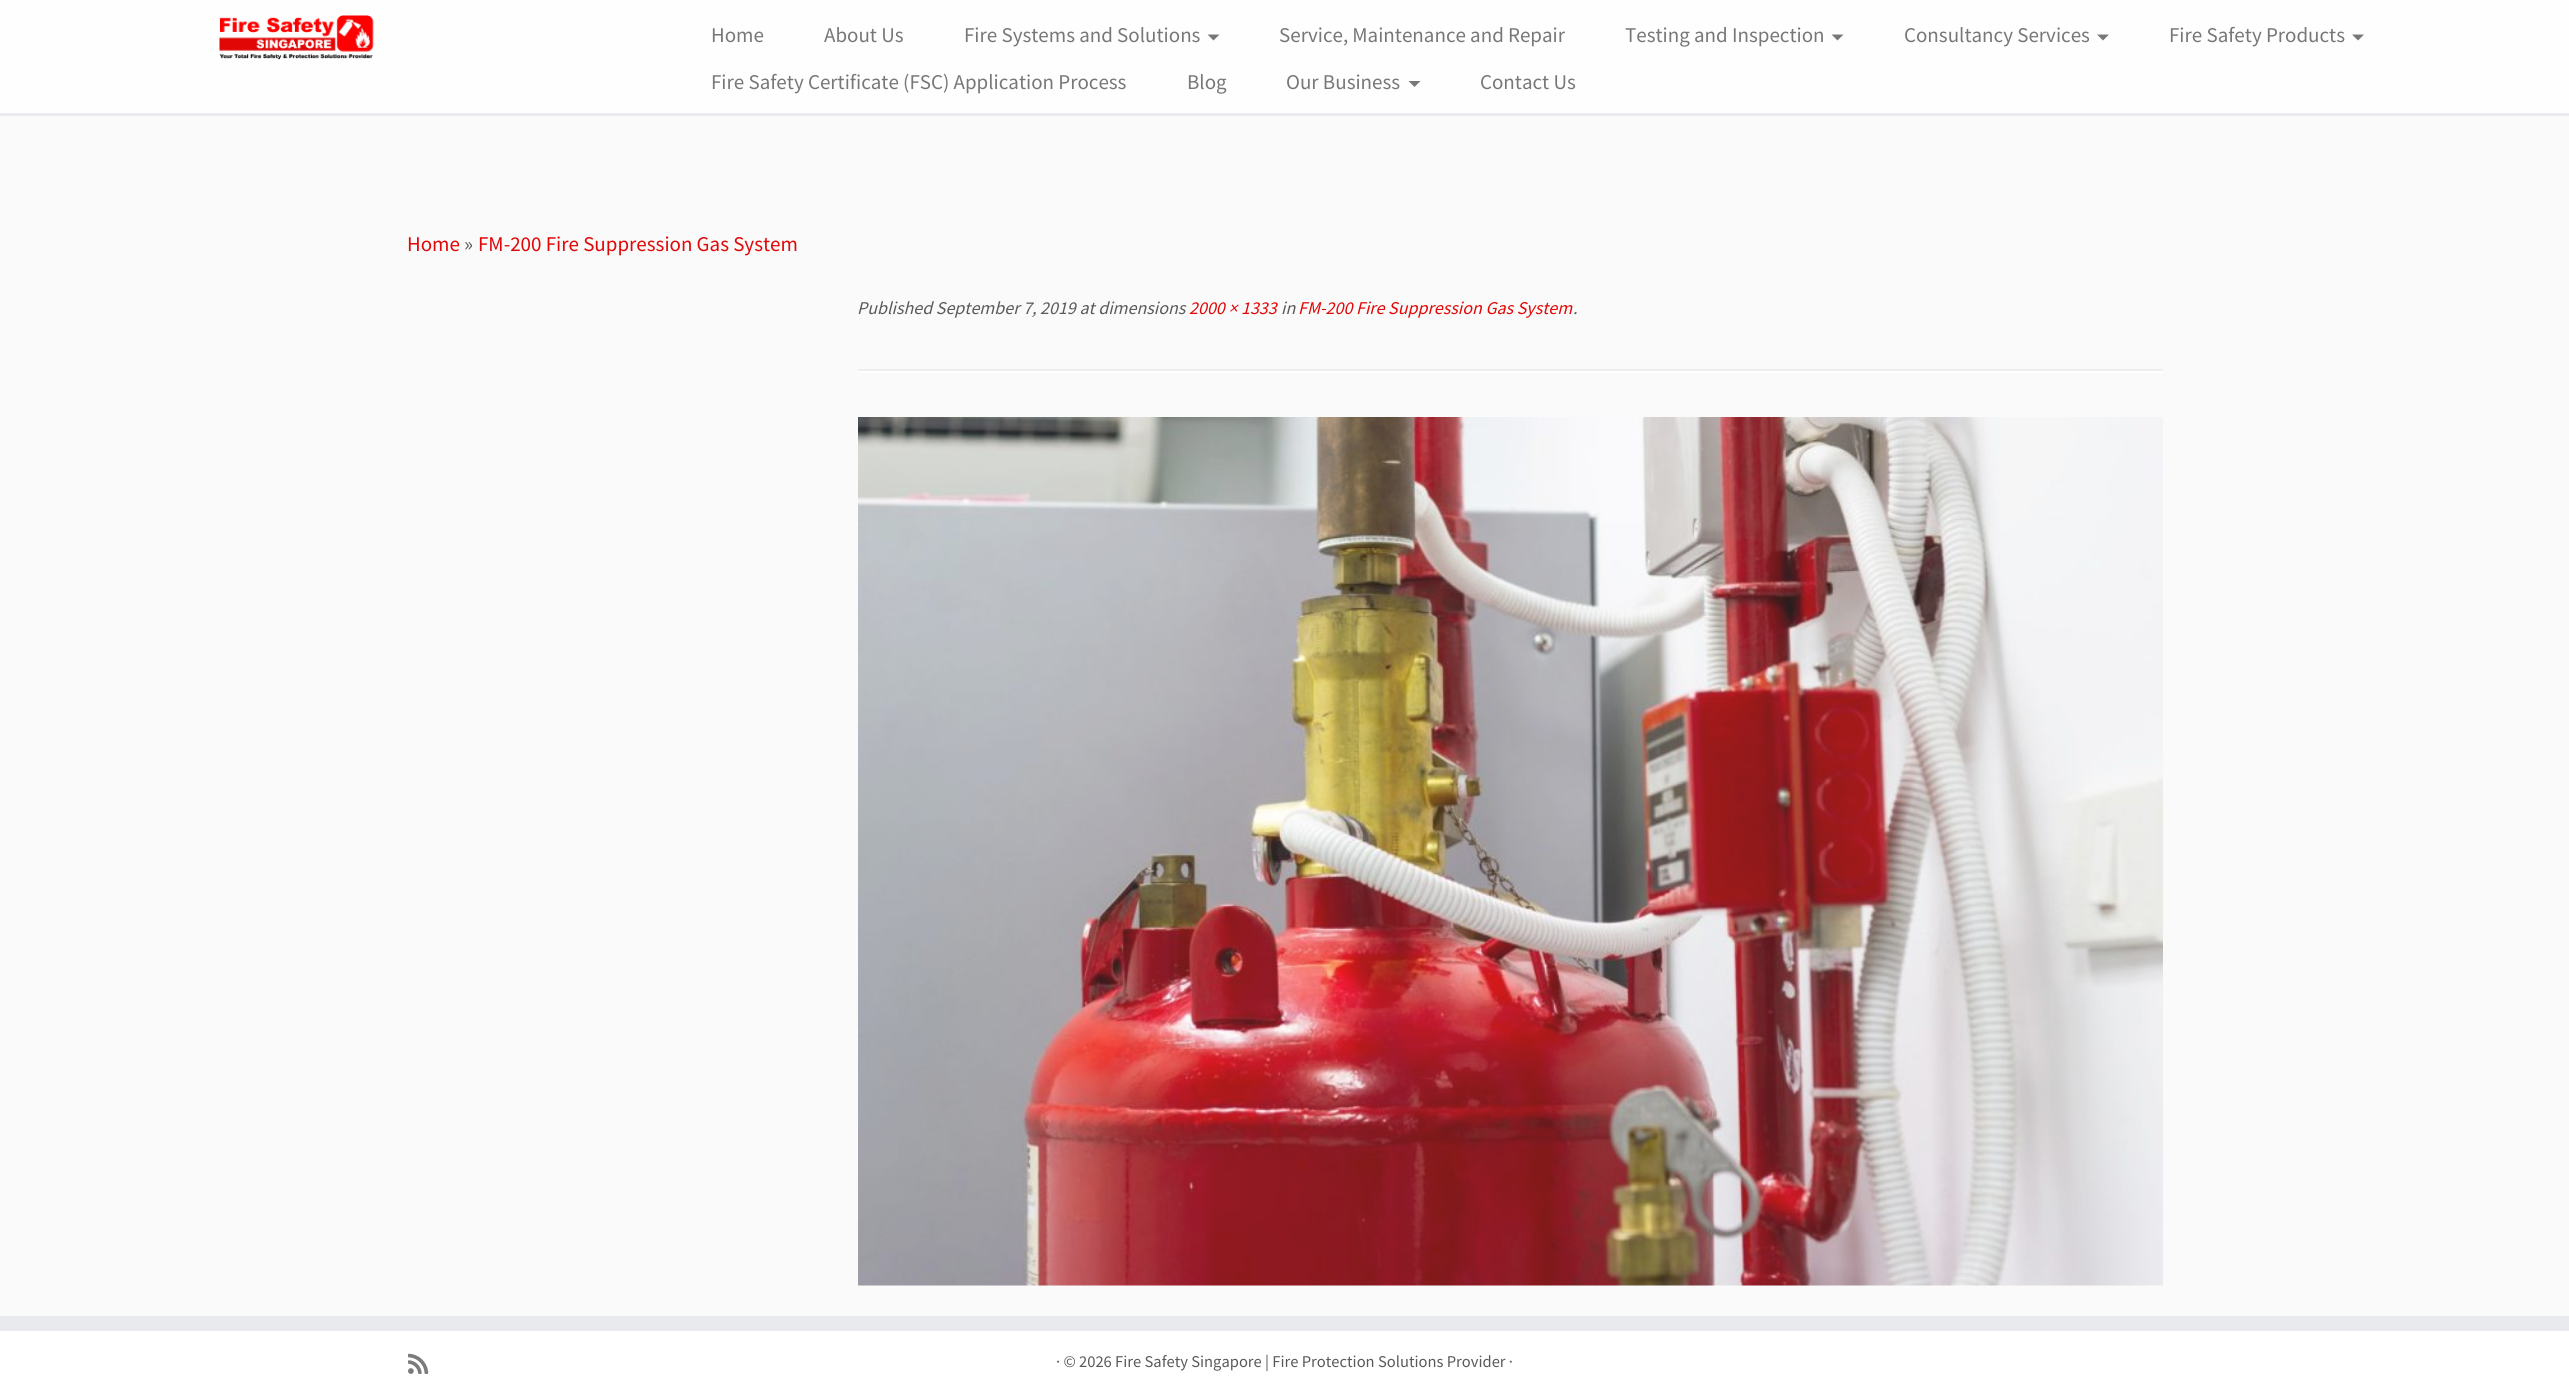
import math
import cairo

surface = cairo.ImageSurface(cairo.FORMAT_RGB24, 2569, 1397)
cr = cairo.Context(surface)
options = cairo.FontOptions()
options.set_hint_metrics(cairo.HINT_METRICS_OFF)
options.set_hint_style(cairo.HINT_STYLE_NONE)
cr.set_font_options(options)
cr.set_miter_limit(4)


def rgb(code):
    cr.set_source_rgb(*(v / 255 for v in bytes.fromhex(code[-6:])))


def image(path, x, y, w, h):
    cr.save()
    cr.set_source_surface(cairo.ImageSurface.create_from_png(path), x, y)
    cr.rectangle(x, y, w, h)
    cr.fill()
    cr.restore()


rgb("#fafafa")
cr.paint()
rgb("#fefefe")
cr.rectangle(0, 0, 2569, 113)
cr.fill()
rgb("#e9eaee")
cr.rectangle(0, 113, 2569, 3)
cr.fill()
image("img/1.png", 219, 15, 155, 45)
rgb("#777777")
cr.new_path()
cr.move_to(1207.5, 34.5)
cr.line_to(1219.5, 34.5)
cr.line_to(1213.5, 40.5)
cr.close_path()
cr.fill()
cr.new_path()
cr.move_to(1831.5, 34.5)
cr.line_to(1843.5, 34.5)
cr.line_to(1837.5, 40.5)
cr.close_path()
cr.fill()
cr.new_path()
cr.move_to(2097, 34.5)
cr.line_to(2109, 34.5)
cr.line_to(2103, 40.5)
cr.close_path()
cr.fill()
cr.new_path()
cr.move_to(2352, 34.5)
cr.line_to(2364, 34.5)
cr.line_to(2358, 40.5)
cr.close_path()
cr.fill()
cr.new_path()
cr.move_to(1408.5, 81)
cr.line_to(1420.5, 81)
cr.line_to(1414.5, 87)
cr.close_path()
cr.fill()
rgb("#eeeeee")
cr.rectangle(858, 369, 1305, 2)
cr.fill()
rgb("#ffffff")
cr.rectangle(858, 371, 1305, 2)
cr.fill()
image("img/2.png", 858, 417, 1305, 869)
rgb("#e9eaee")
cr.rectangle(0, 1316, 2569, 15)
cr.fill()
rgb("#ffffff")
cr.rectangle(0, 1331, 2569, 66)
cr.fill()
image("img/3.png", 408, 1353, 21, 21)
cr.select_font_face("Source Sans Pro")
cr.set_font_size(21)
rgb("#777777")
for x, y, s in [
    (711, 42, "Home"),
    (824, 42, "About Us"),
    (964, 42, "Fire Systems and Solutions"),
    (1279, 42, "Service, Maintenance and Repair"),
    (1625, 42, "Testing and Inspection"),
    (1904, 42, "Consultancy Services"),
    (2169, 42, "Fire Safety Products"),
    (711, 89, "Fire Safety Certificate (FSC) Application Process"),
    (1187, 89, "Blog"),
    (1286, 89, "Our Business"),
    (1480, 89, "Contact Us"),
]:
    cr.move_to(x, y)
    cr.show_text(s)
rgb("#e10707")
cr.move_to(407, 251)
cr.show_text("Home")
rgb("#5a5a5a")
cr.move_to(464, 251)
cr.show_text("»")
rgb("#e10707")
cr.move_to(478, 251)
cr.show_text("FM-200 Fire Suppression Gas System")
cr.select_font_face("Source Sans Pro", cairo.FONT_SLANT_ITALIC)
cr.set_font_size(18)
rgb("#5a5a5a")
cr.move_to(857, 314)
cr.show_text("Published September 7, 2019 at dimensions")
rgb("#e10707")
cr.move_to(1189, 314)
cr.show_text("2000 × 1333")
rgb("#5a5a5a")
cr.move_to(1281, 314)
cr.show_text("in")
rgb("#e10707")
cr.move_to(1298, 314)
cr.show_text("FM-200 Fire Suppression Gas System")
rgb("#5a5a5a")
cr.move_to(1573, 314)
cr.show_text(".")
cr.select_font_face("Source Sans Pro")
cr.set_font_size(16.5)
cr.move_to(1056, 1367)
cr.show_text("· © 2026 Fire Safety Singapore | Fire Protection Solutions Provider ·")
surface.write_to_png("page.png")
